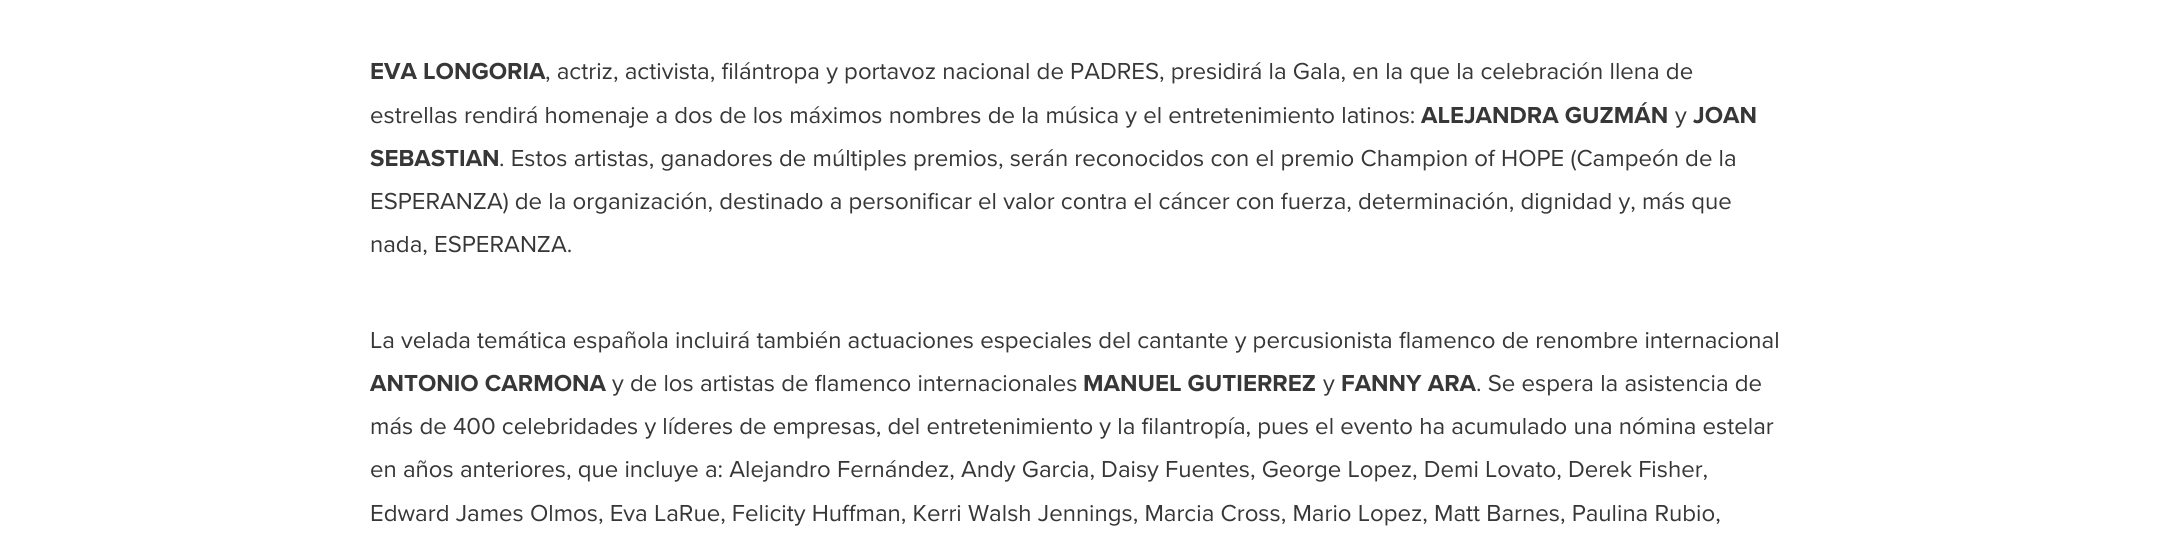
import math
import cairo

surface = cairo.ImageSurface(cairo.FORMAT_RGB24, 2157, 547)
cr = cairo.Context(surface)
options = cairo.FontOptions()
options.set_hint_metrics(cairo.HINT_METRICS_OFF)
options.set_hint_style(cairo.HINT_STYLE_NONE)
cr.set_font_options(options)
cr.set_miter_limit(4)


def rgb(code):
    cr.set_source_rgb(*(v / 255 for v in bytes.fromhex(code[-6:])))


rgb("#ffffff")
cr.paint()
cr.select_font_face("Proxima Nova", cairo.FONT_SLANT_NORMAL, cairo.FONT_WEIGHT_BOLD)
cr.set_font_size(24)
rgb("#373737")
cr.move_to(370, 79)
cr.show_text("EVA LONGORIA")
cr.select_font_face("Proxima Nova")
cr.move_to(545, 79)
cr.show_text(", actriz, activista, filántropa y portavoz nacional de PADRES, presidirá la Gala, en la que la celebración llena de")
cr.move_to(370, 123)
cr.show_text("estrellas rendirá homenaje a dos de los máximos nombres de la música y el entretenimiento latinos:")
cr.select_font_face("Proxima Nova", cairo.FONT_SLANT_NORMAL, cairo.FONT_WEIGHT_BOLD)
cr.move_to(1421, 123)
cr.show_text("ALEJANDRA GUZMÁN")
cr.select_font_face("Proxima Nova")
cr.move_to(1675, 123)
cr.show_text("y")
cr.select_font_face("Proxima Nova", cairo.FONT_SLANT_NORMAL, cairo.FONT_WEIGHT_BOLD)
cr.move_to(1693, 123)
cr.show_text("JOAN")
cr.move_to(370, 166)
cr.show_text("SEBASTIAN")
cr.select_font_face("Proxima Nova")
for x, y, s in [
    (499, 166, ". Estos artistas, ganadores de múltiples premios, serán reconocidos con el premio Champion of HOPE (Campeón de la"),
    (370, 209, "ESPERANZA) de la organización, destinado a personificar el valor contra el cáncer con fuerza, determinación, dignidad y, más que"),
    (370, 252, "nada, ESPERANZA."),
    (370, 348, "La velada temática española incluirá también actuaciones especiales del cantante y percusionista flamenco de renombre internacional"),
]:
    cr.move_to(x, y)
    cr.show_text(s)
cr.select_font_face("Proxima Nova", cairo.FONT_SLANT_NORMAL, cairo.FONT_WEIGHT_BOLD)
cr.move_to(370, 391)
cr.show_text("ANTONIO CARMONA")
cr.select_font_face("Proxima Nova")
cr.move_to(612, 391)
cr.show_text("y de los artistas de flamenco internacionales")
cr.select_font_face("Proxima Nova", cairo.FONT_SLANT_NORMAL, cairo.FONT_WEIGHT_BOLD)
cr.move_to(1083, 391)
cr.show_text("MANUEL GUTIERREZ")
cr.select_font_face("Proxima Nova")
cr.move_to(1323, 391)
cr.show_text("y")
cr.select_font_face("Proxima Nova", cairo.FONT_SLANT_NORMAL, cairo.FONT_WEIGHT_BOLD)
cr.move_to(1341, 391)
cr.show_text("FANNY ARA")
cr.select_font_face("Proxima Nova")
for x, y, s in [
    (1476, 391, ". Se espera la asistencia de"),
    (370, 434, "más de 400 celebridades y líderes de empresas, del entretenimiento y la filantropía, pues el evento ha acumulado una nómina estelar"),
    (370, 477, "en años anteriores, que incluye a: Alejandro Fernández, Andy Garcia, Daisy Fuentes, George Lopez, Demi Lovato, Derek Fisher,"),
    (370, 521, "Edward James Olmos, Eva LaRue, Felicity Huffman, Kerri Walsh Jennings, Marcia Cross, Mario Lopez, Matt Barnes, Paulina Rubio,"),
]:
    cr.move_to(x, y)
    cr.show_text(s)
surface.write_to_png("page.png")
